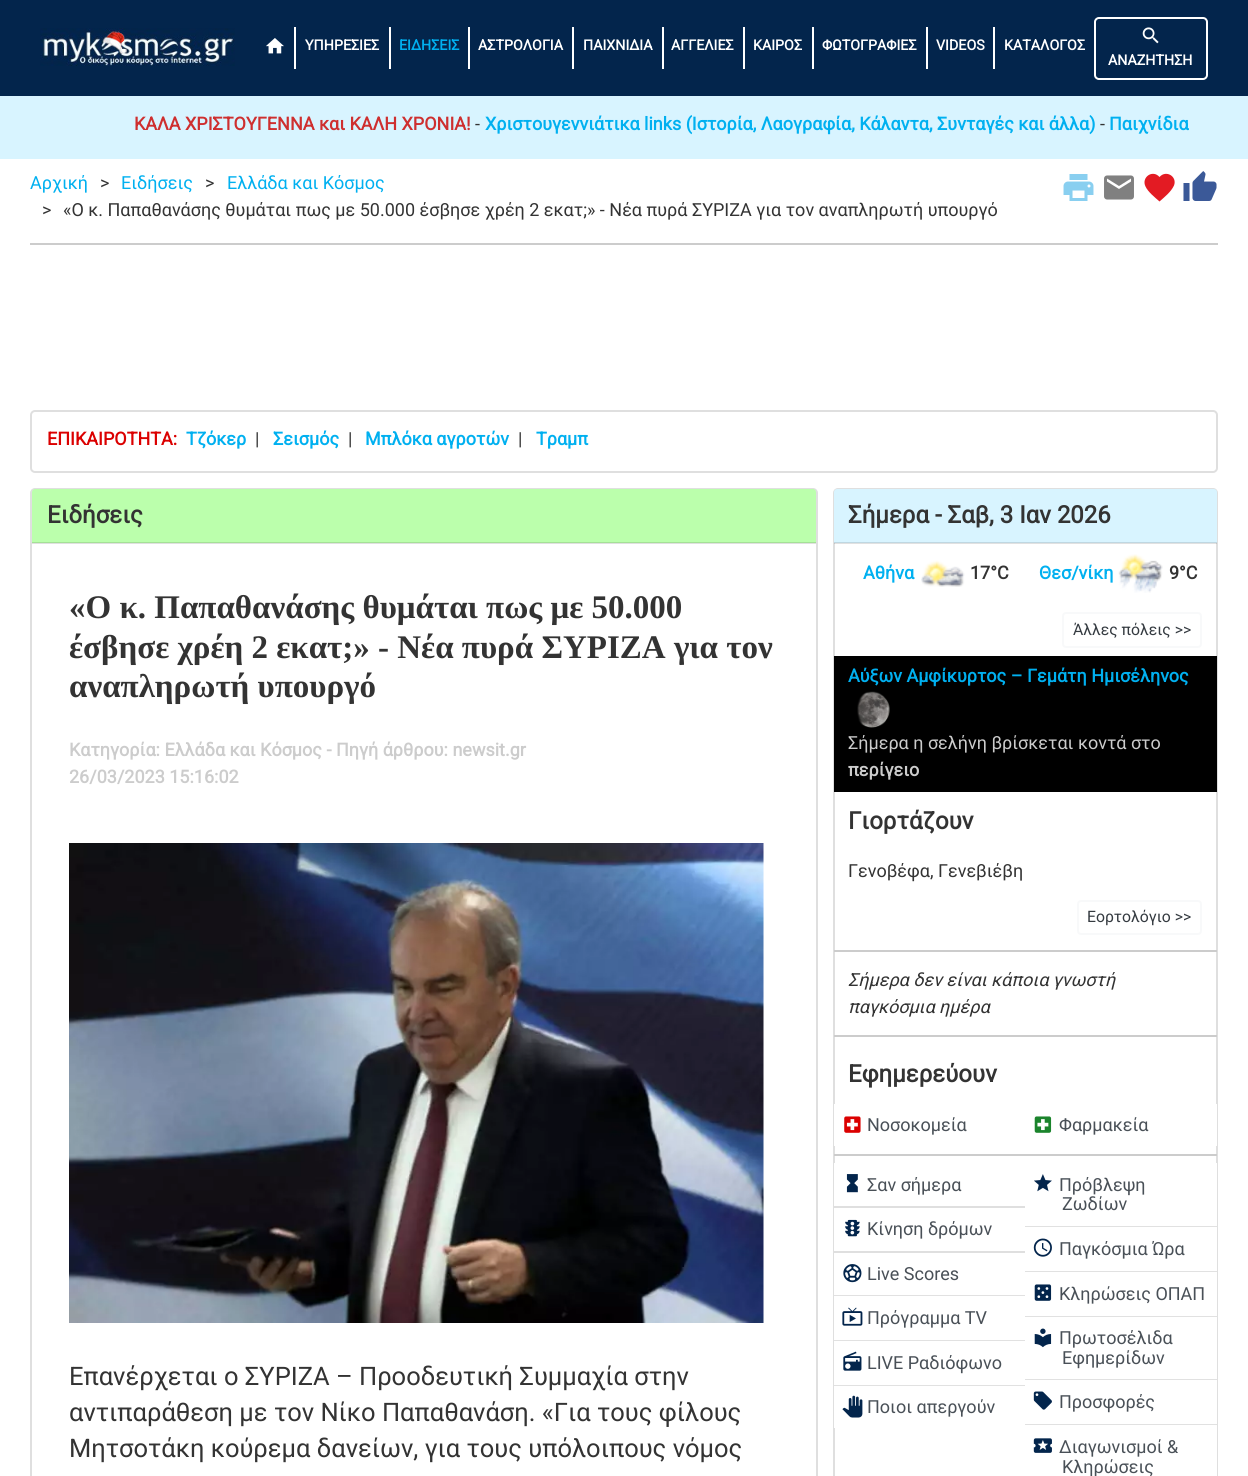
import math
import cairo

surface = cairo.ImageSurface(cairo.FORMAT_RGB24, 1248, 1476)
cr = cairo.Context(surface)
options = cairo.FontOptions()
options.set_hint_metrics(cairo.HINT_METRICS_OFF)
options.set_hint_style(cairo.HINT_STYLE_NONE)
cr.set_font_options(options)
cr.set_miter_limit(4)


def rgb(code):
    cr.set_source_rgb(*(v / 255 for v in bytes.fromhex(code[-6:])))


def rrect(x, y, w, h, r):
    cr.new_sub_path()
    for i, (u, v) in enumerate([(x + w - r, y + h - r), (x + r, y + h - r), (x + r, y + r), (x + w - r, y + r)]):
        cr.arc(u, v, r, i * math.pi / 2, (i + 1) * math.pi / 2)
    cr.close_path()


def image(path, x, y, w, h):
    cr.save()
    cr.set_source_surface(cairo.ImageSurface.create_from_png(path), x, y)
    cr.rectangle(x, y, w, h)
    cr.fill()
    cr.restore()


rgb("#ffffff")
cr.paint()
rgb("#e0e0e0")
cr.rectangle(32, 543, 784, 1)
cr.fill()
rgb("#03254c")
cr.rectangle(0, 0, 1248, 96)
cr.fill()
image("img/1.png", 40, 28, 195, 38)
image("img/2.png", 266, 38, 18, 16)
for x, y, w, h, color in [
    (294, 27, 2, 42, "#ffffff"),
    (389, 27, 2, 42, "#ffffff"),
    (468, 27, 2, 42, "#ffffff"),
    (572, 27, 2, 42, "#ffffff"),
    (662, 27, 2, 42, "#ffffff"),
    (743, 27, 2, 42, "#ffffff"),
    (812, 27, 2, 42, "#ffffff"),
    (926, 27, 2, 42, "#ffffff"),
    (993, 27, 2, 42, "#ffffff"),
]:
    rgb(color)
    cr.rectangle(x, y, w, h)
    cr.fill()
rrect(1095, 18, 112, 61, 4)
cr.stroke()
image("img/3.png", 1142, 27, 17, 17)
rgb("#d8f4ff")
cr.rectangle(0, 96, 1248, 63)
cr.fill()
image("img/4.png", 1063, 174, 31, 27)
image("img/5.png", 1104, 175, 30, 25)
rgb("#e31b23")
cr.new_path()
cr.move_to(1159.5, 201.5)
cr.curve_to(1155, 197.5, 1148, 192, 1145.5, 186.5)
cr.curve_to(1141, 177.5, 1152.5, 169, 1159.5, 177)
cr.curve_to(1166, 169.5, 1177.5, 176.5, 1174, 185.5)
cr.curve_to(1171, 192, 1164.5, 197, 1159.5, 201.5)
cr.close_path()
cr.fill()
image("img/6.png", 1183, 171, 34, 30)
rgb("#cccccc")
cr.rectangle(30, 243, 1188, 2)
cr.fill()
rrect(31, 411, 1186, 61, 4)
rgb("#dfdfdf")
cr.stroke()
rrect(31, 489, 786, 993, 4)
cr.stroke()
rgb("#bbffac")
cr.new_path()
cr.move_to(35, 489)
cr.line_to(813, 489)
cr.curve_to(814.5, 489, 816, 490.5, 816, 492)
cr.line_to(816, 543)
cr.line_to(32, 543)
cr.line_to(32, 492)
cr.curve_to(32, 490.5, 33.5, 489, 35, 489)
cr.close_path()
cr.fill()
rgb("#a5e097")
cr.rectangle(32, 542, 784, 1)
cr.fill()
image("img/7.png", 69, 843, 695, 480)
rrect(834, 489, 383, 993, 4)
rgb("#dfdfdf")
cr.stroke()
rgb("#d8f4ff")
cr.new_path()
cr.move_to(837, 489)
cr.line_to(1214, 489)
cr.curve_to(1215.5, 489, 1217, 490.5, 1217, 492)
cr.line_to(1217, 543)
cr.line_to(834, 543)
cr.line_to(834, 492)
cr.curve_to(834, 490.5, 835.5, 489, 837, 489)
cr.close_path()
cr.fill()
cr.set_source_rgba(0, 0, 0, 0.12)
cr.rectangle(834, 542, 383, 2)
cr.fill()
image("img/8.png", 921, 560, 44, 27)
image("img/9.png", 1118, 554, 45, 39)
rrect(1063, 613, 138, 34, 3)
rgb("#f8f9fa")
cr.stroke()
rgb("#000000")
cr.rectangle(834, 656, 383, 136)
cr.fill()
image("img/10.png", 857, 691, 33, 37)
rrect(1078, 901, 123, 33, 3)
rgb("#f8f9fa")
cr.stroke()
for x, y, w, h, color in [
    (834, 950, 383, 2, "#cccccc"),
    (834, 1035, 383, 2, "#cccccc"),
    (834, 1104, 1, 42, "#ffffff"),
]:
    rgb(color)
    cr.rectangle(x, y, w, h)
    cr.fill()
image("img/11.png", 844, 1116, 17, 17)
cr.rectangle(1216, 1104, 1, 42)
cr.fill()
image("img/12.png", 1034, 1116, 18, 17)
for x, y, w, h, color in [
    (834, 1154, 383, 2, "#cccccc"),
    (834, 1163, 1, 43, "#ffffff"),
    (834, 1206, 191, 2, "#dfdfdf"),
]:
    rgb(color)
    cr.rectangle(x, y, w, h)
    cr.fill()
image("img/13.png", 846, 1174, 12, 19)
rgb("#ffffff")
cr.rectangle(834, 1208, 1, 43)
cr.fill()
rgb("#dfdfdf")
cr.rectangle(834, 1251, 191, 2)
cr.fill()
image("img/14.png", 845, 1219, 15, 18)
rgb("#ffffff")
cr.rectangle(834, 1253, 1, 175)
cr.fill()
cr.set_source_rgba(0, 0, 0, 0.12)
cr.rectangle(834, 1295, 191, 1)
cr.fill()
image("img/15.png", 843, 1264, 19, 19)
cr.rectangle(834, 1340, 191, 1)
cr.fill()
image("img/16.png", 842, 1307, 21, 19)
cr.rectangle(834, 1385, 191, 1)
cr.fill()
image("img/17.png", 843, 1351, 19, 20)
image("img/18.png", 842, 1395, 21, 23)
rgb("#ffffff")
cr.rectangle(1216, 1163, 1, 313)
cr.fill()
cr.set_source_rgba(0, 0, 0, 0.12)
cr.rectangle(1025, 1226, 192, 1)
cr.fill()
image("img/19.png", 1034, 1174, 18, 18)
cr.rectangle(1025, 1271, 192, 1)
cr.fill()
image("img/20.png", 1033, 1238, 19, 19)
cr.rectangle(1025, 1316, 192, 1)
cr.fill()
image("img/21.png", 1034, 1284, 18, 17)
cr.rectangle(1025, 1379, 192, 1)
cr.fill()
image("img/22.png", 1034, 1328, 18, 20)
cr.rectangle(1025, 1424, 192, 1)
cr.fill()
image("img/23.png", 1033, 1391, 19, 19)
image("img/24.png", 1033, 1438, 19, 15)
cr.select_font_face("Roboto", cairo.FONT_SLANT_NORMAL, cairo.FONT_WEIGHT_BOLD)
cr.set_font_size(14.25)
rgb("#ffffff")
cr.move_to(305, 50)
cr.show_text("ΥΠΗΡΕΣΙΕΣ")
rgb("#00b0f0")
cr.move_to(399, 50)
cr.show_text("ΕΙΔΗΣΕΙΣ")
rgb("#ffffff")
for x, y, s in [
    (478, 50, "ΑΣΤΡΟΛΟΓΙΑ"),
    (583, 50, "ΠΑΙΧΝΙΔΙΑ"),
    (671, 50, "ΑΓΓΕΛΙΕΣ"),
    (753, 50, "ΚΑΙΡΟΣ"),
    (822, 50, "ΦΩΤΟΓΡΑΦΙΕΣ"),
    (936, 50, "VIDEOS"),
    (1004, 50, "ΚΑΤΑΛΟΓΟΣ"),
    (1108, 65, "ΑΝΑΖΗΤΗΣΗ"),
]:
    cr.move_to(x, y)
    cr.show_text(s)
cr.set_font_size(18)
rgb("#ce2f2f")
cr.move_to(134, 130)
cr.show_text("ΚΑΛΑ ΧΡΙΣΤΟΥΓΕΝΝΑ και ΚΑΛΗ ΧΡΟΝΙΑ!")
cr.select_font_face("Roboto")
rgb("#333333")
cr.move_to(475, 130)
cr.show_text("-")
cr.select_font_face("Roboto", cairo.FONT_SLANT_NORMAL, cairo.FONT_WEIGHT_BOLD)
rgb("#00b0f0")
cr.move_to(485, 130)
cr.show_text("Χριστουγεννιάτικα links (Ιστορία, Λαογραφία, Κάλαντα, Συνταγές και άλλα)")
cr.select_font_face("Roboto")
rgb("#333333")
cr.move_to(1100, 130)
cr.show_text("-")
cr.select_font_face("Roboto", cairo.FONT_SLANT_NORMAL, cairo.FONT_WEIGHT_BOLD)
rgb("#00b0f0")
cr.move_to(1109, 130)
cr.show_text("Παιχνίδια")
cr.select_font_face("Roboto")
cr.move_to(30, 189)
cr.show_text("Αρχική")
rgb("#333333")
cr.move_to(100, 189)
cr.show_text(">")
rgb("#00b0f0")
cr.move_to(121, 189)
cr.show_text("Ειδήσεις")
rgb("#333333")
cr.move_to(205, 189)
cr.show_text(">")
rgb("#00b0f0")
cr.move_to(227, 189)
cr.show_text("Ελλάδα και Κόσμος")
rgb("#333333")
cr.move_to(42, 216)
cr.show_text(">")
cr.move_to(63, 216)
cr.show_text("«Ο κ. Παπαθανάσης θυμάται πως με 50.000 έσβησε χρέη 2 εκατ;» - Νέα πυρά ΣΥΡΙΖΑ για τον αναπληρωτή υπουργό")
cr.select_font_face("Roboto", cairo.FONT_SLANT_NORMAL, cairo.FONT_WEIGHT_BOLD)
rgb("#db0000")
cr.move_to(47, 445)
cr.show_text("ΕΠΙΚΑΙΡΟΤΗΤΑ:")
rgb("#00b0f0")
cr.move_to(186, 445)
cr.show_text("Τζόκερ")
cr.select_font_face("Roboto")
rgb("#333333")
cr.move_to(255, 445)
cr.show_text("|")
cr.select_font_face("Roboto", cairo.FONT_SLANT_NORMAL, cairo.FONT_WEIGHT_BOLD)
rgb("#00b0f0")
cr.move_to(273, 445)
cr.show_text("Σεισμός")
cr.select_font_face("Roboto")
rgb("#333333")
cr.move_to(348, 445)
cr.show_text("|")
cr.select_font_face("Roboto", cairo.FONT_SLANT_NORMAL, cairo.FONT_WEIGHT_BOLD)
rgb("#00b0f0")
cr.move_to(365, 445)
cr.show_text("Μπλόκα αγροτών")
cr.select_font_face("Roboto")
rgb("#333333")
cr.move_to(518, 445)
cr.show_text("|")
cr.select_font_face("Roboto", cairo.FONT_SLANT_NORMAL, cairo.FONT_WEIGHT_BOLD)
rgb("#00b0f0")
cr.move_to(536, 445)
cr.show_text("Τραμπ")
cr.set_font_size(24)
rgb("#333333")
cr.move_to(47, 523)
cr.show_text("Ειδήσεις")
cr.select_font_face("Liberation Serif", cairo.FONT_SLANT_NORMAL, cairo.FONT_WEIGHT_BOLD)
cr.set_font_size(33)
for x, y, s in [
    (69, 618, "«Ο κ. Παπαθανάσης θυμάται πως με 50.000"),
    (69, 658, "έσβησε χρέη 2 εκατ;» - Νέα πυρά ΣΥΡΙΖΑ για τον"),
    (69, 697, "αναπληρωτή υπουργό"),
]:
    cr.move_to(x, y)
    cr.show_text(s)
cr.select_font_face("Roboto", cairo.FONT_SLANT_NORMAL, cairo.FONT_WEIGHT_BOLD)
cr.set_font_size(18)
rgb("#cccccc")
cr.move_to(69, 756)
cr.show_text("Κατηγορία: Ελλάδα και Κόσμος - Πηγή άρθρου: newsit.gr")
cr.move_to(69, 783)
cr.show_text("26/03/2023 15:16:02")
cr.select_font_face("Roboto")
cr.set_font_size(25.5)
rgb("#333333")
for x, y, s in [
    (69, 1385, "Επανέρχεται ο ΣΥΡΙΖΑ – Προοδευτική Συμμαχία στην"),
    (69, 1421, "αντιπαράθεση με τον Νίκο Παπαθανάση. «Για τους φίλους"),
    (69, 1457, "Μητσοτάκη κούρεμα δανείων, για τους υπόλοιπους νόμος"),
]:
    cr.move_to(x, y)
    cr.show_text(s)
cr.select_font_face("Roboto", cairo.FONT_SLANT_NORMAL, cairo.FONT_WEIGHT_BOLD)
cr.set_font_size(24)
cr.move_to(848, 523)
cr.show_text("Σήμερα - Σαβ, 3 Ιαν 2026")
cr.set_font_size(18)
rgb("#00b0f0")
cr.move_to(863, 579)
cr.show_text("Αθήνα")
rgb("#333333")
cr.move_to(970, 579)
cr.show_text("17°C")
rgb("#00b0f0")
cr.move_to(1039, 579)
cr.show_text("Θεσ/νίκη")
rgb("#333333")
cr.move_to(1169, 579)
cr.show_text("9°C")
cr.select_font_face("Roboto")
cr.set_font_size(15.75)
rgb("#343a40")
cr.move_to(1073, 635)
cr.show_text("Άλλες πόλεις >>")
cr.select_font_face("Roboto", cairo.FONT_SLANT_NORMAL, cairo.FONT_WEIGHT_BOLD)
cr.set_font_size(18)
rgb("#00b0f0")
cr.move_to(848, 682)
cr.show_text("Αύξων Αμφίκυρτος – Γεμάτη Ημισέληνος")
cr.select_font_face("Roboto")
rgb("#cccccc")
cr.move_to(848, 749)
cr.show_text("Σήμερα η σελήνη βρίσκεται κοντά στο")
cr.select_font_face("Roboto", cairo.FONT_SLANT_NORMAL, cairo.FONT_WEIGHT_BOLD)
cr.move_to(848, 776)
cr.show_text("περίγειο")
cr.set_font_size(24)
rgb("#333333")
cr.move_to(848, 829)
cr.show_text("Γιορτάζουν")
cr.select_font_face("Roboto")
cr.set_font_size(18)
cr.move_to(848, 877)
cr.show_text("Γενοβέφα, Γενεβιέβη")
cr.set_font_size(15.75)
rgb("#343a40")
cr.move_to(1087, 922)
cr.show_text("Εορτολόγιο >>")
cr.select_font_face("Roboto", cairo.FONT_SLANT_ITALIC)
cr.set_font_size(18)
rgb("#333333")
cr.move_to(848, 986)
cr.show_text("Σήμερα δεν είναι κάποια γνωστή")
cr.move_to(848, 1013)
cr.show_text("παγκόσμια ημέρα")
cr.select_font_face("Roboto", cairo.FONT_SLANT_NORMAL, cairo.FONT_WEIGHT_BOLD)
cr.set_font_size(24)
cr.move_to(848, 1082)
cr.show_text("Εφημερεύουν")
cr.select_font_face("Roboto")
cr.set_font_size(18)
rgb("#495057")
for x, y, s in [
    (867, 1131, "Νοσοκομεία"),
    (1059, 1131, "Φαρμακεία"),
    (867, 1191, "Σαν σήμερα"),
    (867, 1235, "Κίνηση δρόμων"),
    (867, 1280, "Live Scores"),
    (867, 1324, "Πρόγραμμα TV"),
    (867, 1369, "LIVE Ραδιόφωνο"),
    (867, 1413, "Ποιοι απεργούν"),
    (1059, 1191, "Πρόβλεψη"),
    (1062, 1210, "Ζωδίων"),
    (1059, 1255, "Παγκόσμια Ώρα"),
    (1059, 1300, "Κληρώσεις ΟΠΑΠ"),
    (1059, 1344, "Πρωτοσέλιδα"),
    (1062, 1364, "Εφημερίδων"),
    (1059, 1408, "Προσφορές"),
    (1059, 1453, "Διαγωνισμοί &"),
    (1062, 1473, "Κληρώσεις"),
]:
    cr.move_to(x, y)
    cr.show_text(s)
surface.write_to_png("page.png")
